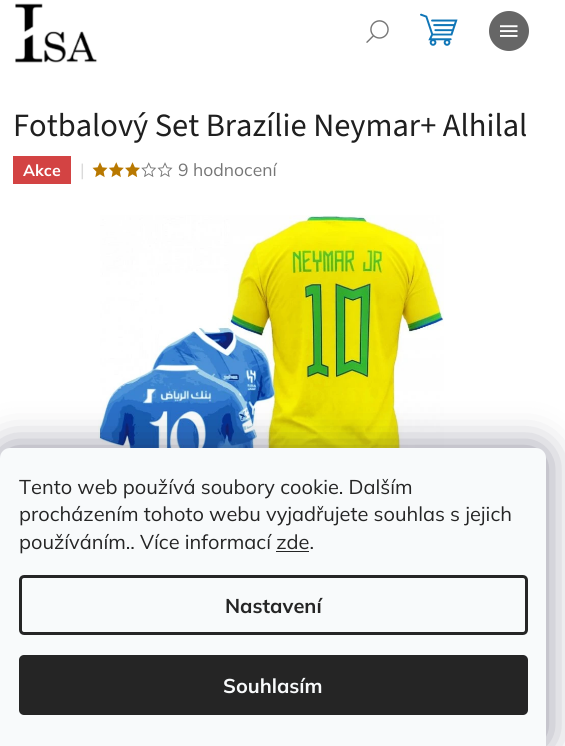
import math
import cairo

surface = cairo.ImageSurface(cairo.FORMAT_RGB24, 565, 746)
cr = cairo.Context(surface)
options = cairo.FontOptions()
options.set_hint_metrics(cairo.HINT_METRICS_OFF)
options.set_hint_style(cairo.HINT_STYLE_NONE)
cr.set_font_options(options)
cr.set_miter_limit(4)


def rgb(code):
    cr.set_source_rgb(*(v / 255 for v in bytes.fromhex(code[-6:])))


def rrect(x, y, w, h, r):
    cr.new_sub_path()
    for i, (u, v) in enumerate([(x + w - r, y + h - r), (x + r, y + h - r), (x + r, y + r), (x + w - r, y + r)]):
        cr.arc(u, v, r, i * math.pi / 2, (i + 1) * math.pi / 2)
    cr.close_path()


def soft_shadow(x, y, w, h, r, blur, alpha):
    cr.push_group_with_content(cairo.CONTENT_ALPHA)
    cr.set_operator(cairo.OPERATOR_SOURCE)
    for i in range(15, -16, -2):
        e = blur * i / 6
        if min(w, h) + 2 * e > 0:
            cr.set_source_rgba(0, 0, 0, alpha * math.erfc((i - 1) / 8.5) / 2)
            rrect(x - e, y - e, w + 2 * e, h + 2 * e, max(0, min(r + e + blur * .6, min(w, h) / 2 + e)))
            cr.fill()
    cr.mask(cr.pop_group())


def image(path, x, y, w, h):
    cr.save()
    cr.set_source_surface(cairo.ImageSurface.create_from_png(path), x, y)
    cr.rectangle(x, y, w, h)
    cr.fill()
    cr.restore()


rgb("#ffffff")
cr.paint()
image("img/1.png", 15, 3, 83, 60)
image("img/2.png", 420, 13, 38, 33)
image("img/3.png", 366, 20, 23, 23)
rgb("#666666")
cr.arc(509, 31, 20, 0, 2 * math.pi)
cr.fill()
image("img/4.png", 500, 25, 18, 12)
rgb("#d34343")
cr.rectangle(13, 156, 58, 28)
cr.fill()
image("img/5.png", 92, 162, 16, 16)
image("img/6.png", 108, 162, 16, 16)
image("img/7.png", 125, 162, 15, 15)
image("img/8.png", 141, 162, 16, 15)
image("img/9.png", 157, 162, 16, 15)
image("img/10.png", 98, 215, 346, 233)
rgb("#1b1939")
soft_shadow(0, 448, 546, 298, 10, 19, 0.5)
rgb("#f8fafb")
cr.new_path()
cr.move_to(10, 448)
cr.line_to(536, 448)
cr.curve_to(541.5, 448, 546, 452.5, 546, 458)
cr.line_to(546, 746)
cr.line_to(0, 746)
cr.line_to(0, 458)
cr.curve_to(0, 452.5, 4.5, 448, 10, 448)
cr.close_path()
cr.fill()
rgb("#252525")
cr.rectangle(276, 551, 33, 1)
cr.fill()
rrect(20.5, 576.5, 506, 57, 3.5)
cr.set_line_width(3)
cr.stroke()
rrect(19, 655, 509, 60, 5)
cr.fill()
cr.select_font_face("Source Sans 3")
cr.set_font_size(32.5)
rgb("#1f1f1f")
cr.move_to(13, 136)
cr.show_text("Fotbalový Set Brazílie Neymar+ Alhilal")
cr.select_font_face("Mulish", cairo.FONT_SLANT_NORMAL, cairo.FONT_WEIGHT_BOLD)
cr.set_font_size(16)
rgb("#ffffff")
cr.move_to(23, 176)
cr.show_text("Akce")
cr.select_font_face("Mulish")
cr.set_font_size(17.5)
rgb("#dadada")
cr.move_to(80, 176)
cr.show_text("|")
rgb("#767676")
cr.move_to(178, 176)
cr.show_text("9 hodnocení")
cr.set_font_size(20)
rgb("#252525")
for x, y, s in [
    (19, 494, "Tento web používá soubory cookie. Dalším"),
    (19, 521, "procházením tohoto webu vyjadřujete souhlas s jejich"),
    (19, 549, "používáním.. Více informací zde."),
]:
    cr.move_to(x, y)
    cr.show_text(s)
cr.select_font_face("Mulish", cairo.FONT_SLANT_NORMAL, cairo.FONT_WEIGHT_BOLD)
cr.move_to(225, 613)
cr.show_text("Nastavení")
rgb("#f8fafb")
cr.move_to(223, 693)
cr.show_text("Souhlasím")
surface.write_to_png("page.png")
